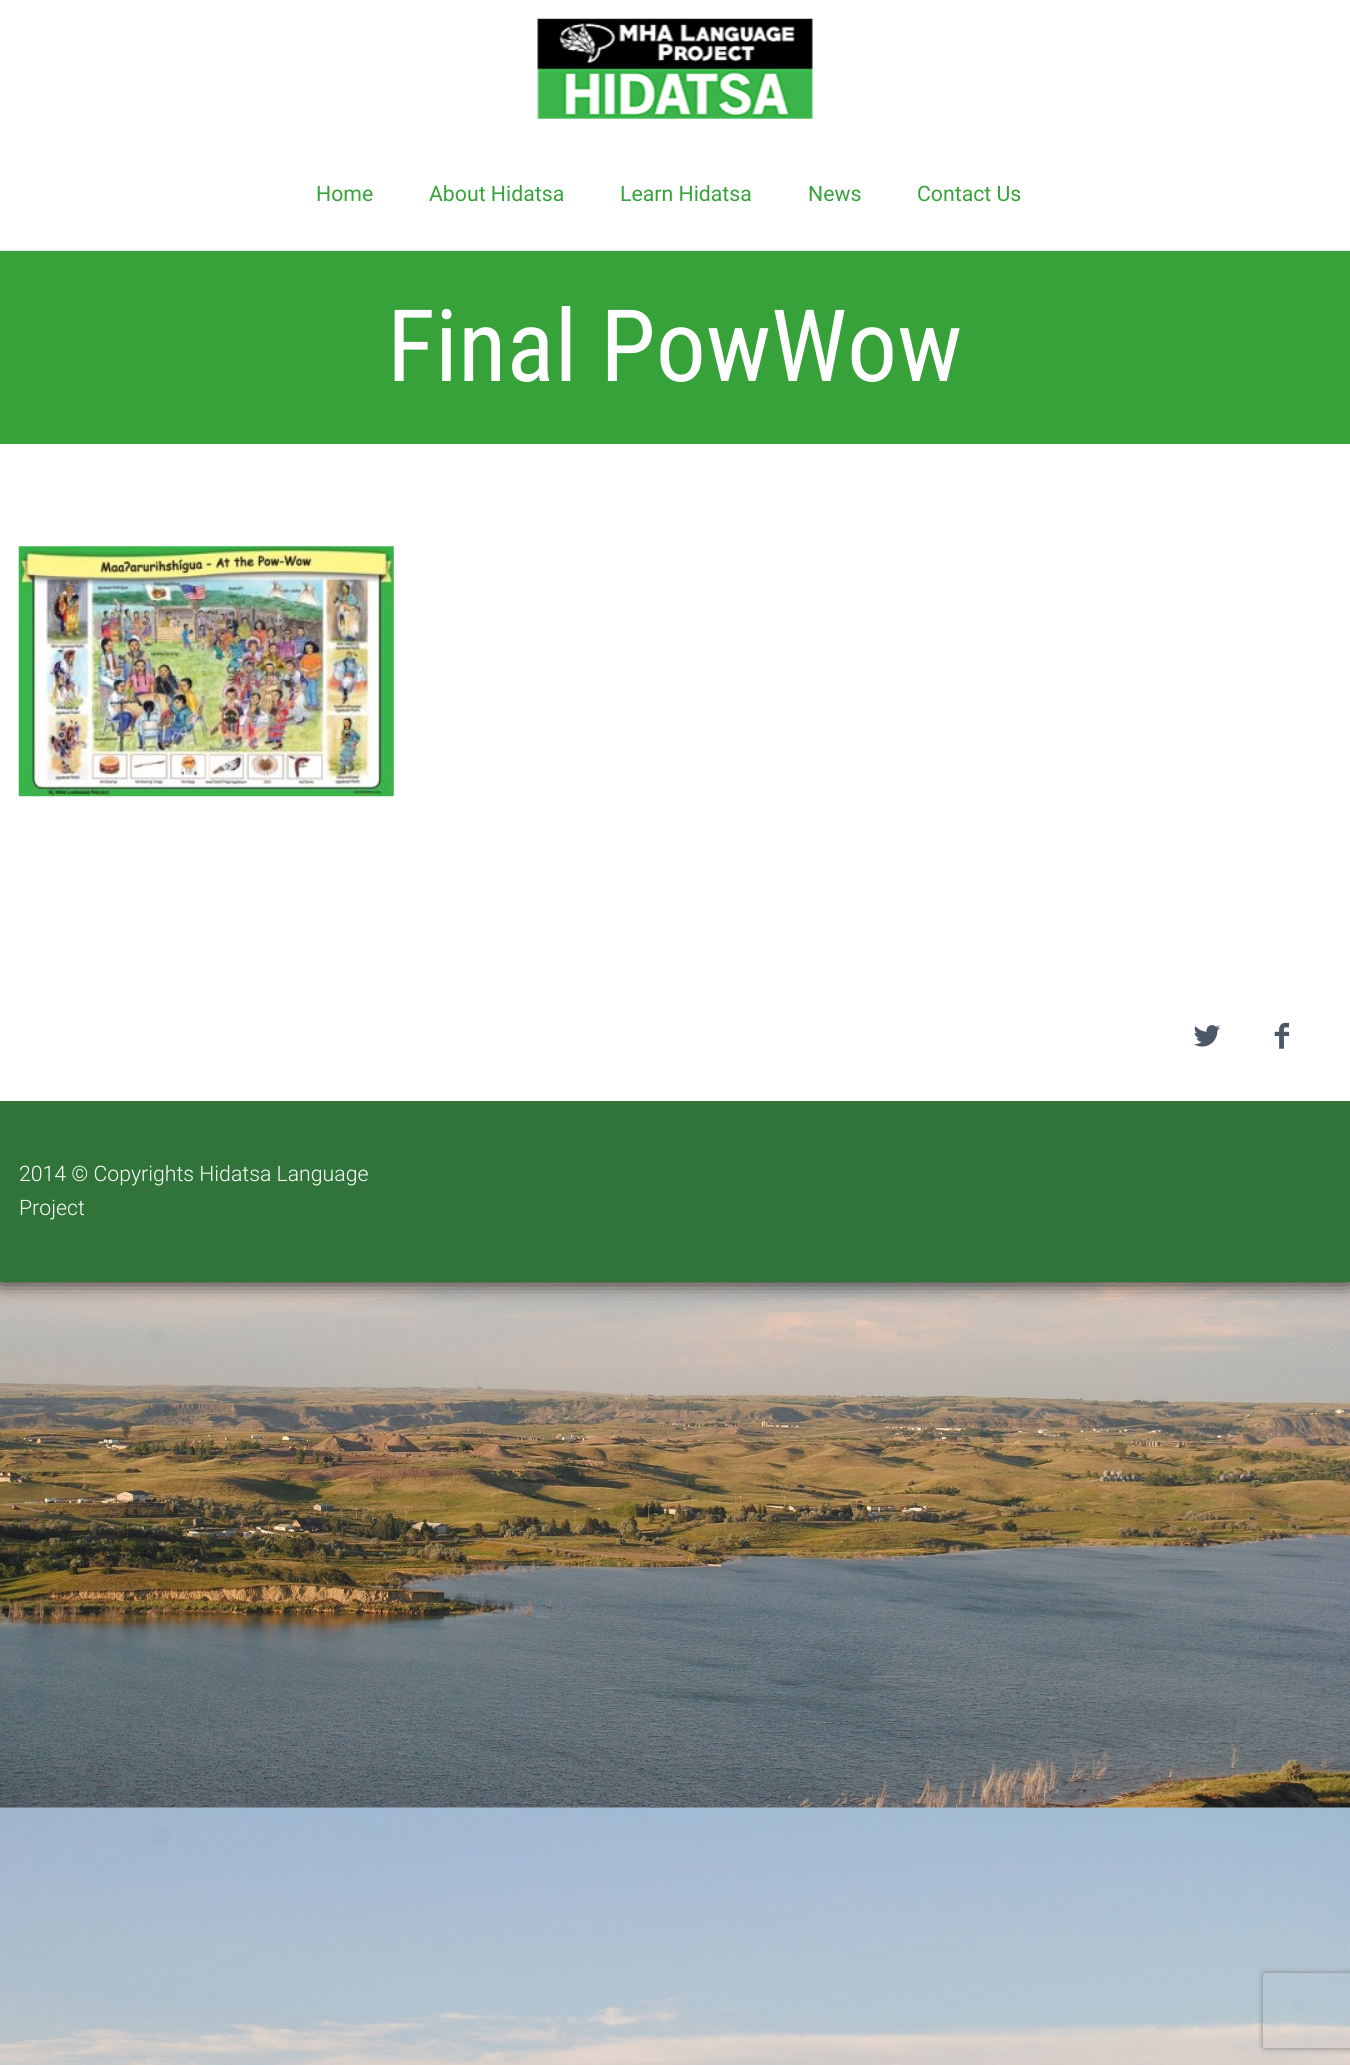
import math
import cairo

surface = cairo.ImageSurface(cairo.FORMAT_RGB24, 1350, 2065)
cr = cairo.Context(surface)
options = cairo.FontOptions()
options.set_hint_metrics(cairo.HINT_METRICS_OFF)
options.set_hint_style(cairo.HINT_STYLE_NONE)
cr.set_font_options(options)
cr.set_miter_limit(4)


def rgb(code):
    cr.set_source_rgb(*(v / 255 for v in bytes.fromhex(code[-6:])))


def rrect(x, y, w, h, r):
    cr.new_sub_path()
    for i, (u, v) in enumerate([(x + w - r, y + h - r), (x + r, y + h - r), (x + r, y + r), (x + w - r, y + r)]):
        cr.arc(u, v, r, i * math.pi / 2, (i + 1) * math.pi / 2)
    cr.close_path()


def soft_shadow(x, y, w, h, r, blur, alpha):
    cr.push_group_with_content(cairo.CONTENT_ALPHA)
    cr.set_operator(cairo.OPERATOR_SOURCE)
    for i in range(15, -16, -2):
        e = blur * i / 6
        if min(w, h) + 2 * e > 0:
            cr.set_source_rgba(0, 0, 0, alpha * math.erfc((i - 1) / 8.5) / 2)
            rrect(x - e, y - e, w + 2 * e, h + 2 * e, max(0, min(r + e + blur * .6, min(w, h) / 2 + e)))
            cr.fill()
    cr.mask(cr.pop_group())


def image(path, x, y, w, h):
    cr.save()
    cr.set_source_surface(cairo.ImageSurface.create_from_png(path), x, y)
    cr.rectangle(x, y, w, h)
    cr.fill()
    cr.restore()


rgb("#ffffff")
cr.paint()
image("img/1.png", 0, 1282, 1350, 783)
rgb("#000000")
soft_shadow(0, 0, 1350, 1281, 0, 11, 1)
rgb("#ffffff")
cr.rectangle(0, 0, 1350, 250)
cr.fill()
rgb("#e6e6e6")
cr.rectangle(0, 250, 1350, 1)
cr.fill()
image("img/2.png", 537, 18, 276, 101)
rgb("#36a239")
cr.rectangle(0, 251, 1350, 193)
cr.fill()
rgb("#ffffff")
cr.rectangle(0, 444, 1350, 657)
cr.fill()
image("img/3.png", 18, 546, 376, 251)
image("img/4.png", 1193, 1025, 27, 22)
image("img/5.png", 1274, 1022, 16, 27)
rgb("#30743a")
cr.rectangle(0, 1101, 1350, 181)
cr.fill()
cr.save()
cr.set_fill_rule(cairo.FILL_RULE_EVEN_ODD)
cr.new_path()
cr.move_to(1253, 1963)
cr.line_to(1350, 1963)
cr.line_to(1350, 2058)
cr.line_to(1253, 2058)
cr.close_path()
cr.move_to(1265.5, 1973)
cr.line_to(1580.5, 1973)
cr.curve_to(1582, 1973, 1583, 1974, 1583, 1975.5)
cr.line_to(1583, 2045.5)
cr.curve_to(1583, 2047, 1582, 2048, 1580.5, 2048)
cr.line_to(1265.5, 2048)
cr.curve_to(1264, 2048, 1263, 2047, 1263, 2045.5)
cr.line_to(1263, 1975.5)
cr.curve_to(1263, 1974, 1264, 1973, 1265.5, 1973)
cr.close_path()
cr.clip()
rgb("#808080")
soft_shadow(1263, 1973, 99, 75, 2.5, 3, 1)
cr.restore()
cr.select_font_face("Roboto")
cr.set_font_size(21.25)
rgb("#36a239")
for x, y, s in [
    (316, 201, "Home"),
    (429, 201, "About Hidatsa"),
    (620, 201, "Learn Hidatsa"),
    (808, 201, "News"),
    (917, 201, "Contact Us"),
]:
    cr.move_to(x, y)
    cr.show_text(s)
cr.select_font_face("Roboto Condensed")
cr.set_font_size(100)
rgb("#ffffff")
cr.move_to(387, 381)
cr.show_text("Final PowWow")
cr.select_font_face("Roboto Light")
cr.set_font_size(21.25)
cr.move_to(19, 1181)
cr.show_text("2014 © Copyrights Hidatsa Language")
cr.move_to(19, 1215)
cr.show_text("Project")
surface.write_to_png("page.png")
